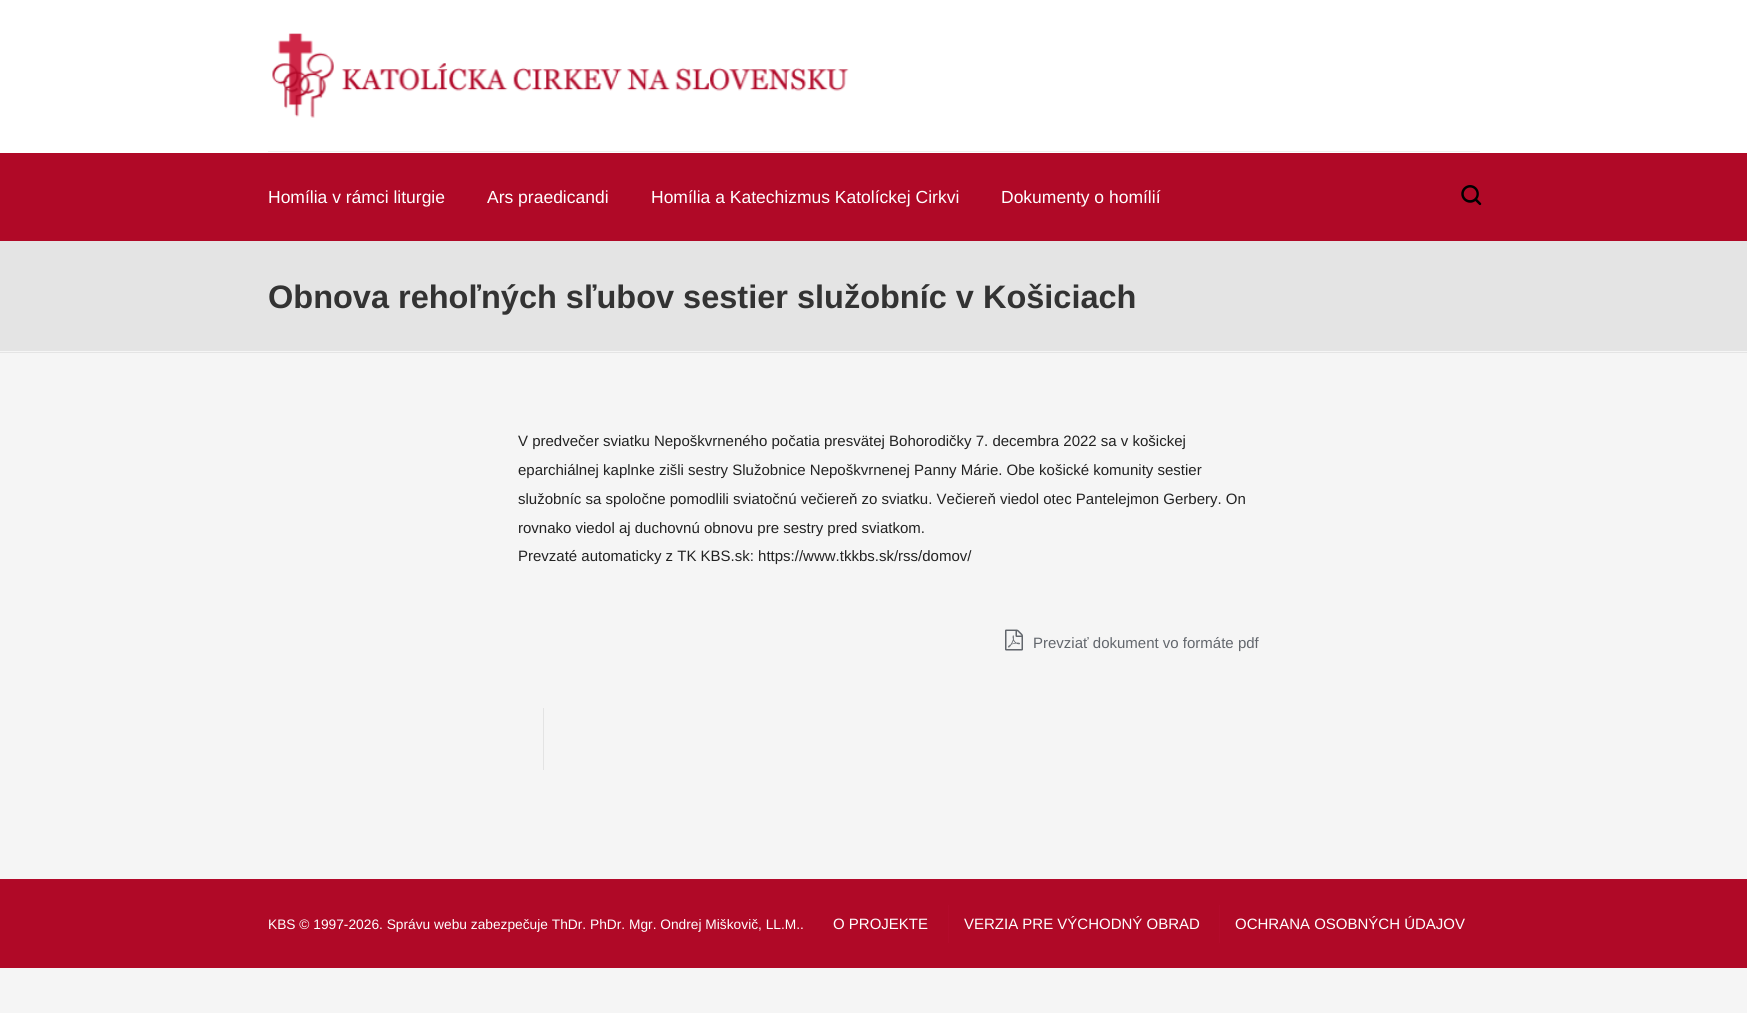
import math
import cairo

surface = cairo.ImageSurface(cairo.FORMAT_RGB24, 1747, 1013)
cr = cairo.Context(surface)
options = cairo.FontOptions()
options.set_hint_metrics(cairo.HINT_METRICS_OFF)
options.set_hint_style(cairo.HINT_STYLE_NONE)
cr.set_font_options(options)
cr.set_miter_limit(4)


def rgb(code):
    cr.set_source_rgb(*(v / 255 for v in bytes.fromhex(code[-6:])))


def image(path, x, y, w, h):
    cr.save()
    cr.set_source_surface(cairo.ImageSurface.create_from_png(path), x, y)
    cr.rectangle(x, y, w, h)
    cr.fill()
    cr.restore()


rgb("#f5f5f5")
cr.paint()
rgb("#ffffff")
cr.rectangle(0, 0, 1747, 153)
cr.fill()
image("img/1.png", 272, 33, 577, 85)
rgb("#f0f0f0")
cr.rectangle(268, 151, 1212, 1)
cr.fill()
rgb("#b00927")
cr.rectangle(0, 153, 1747, 88)
cr.fill()
image("img/2.png", 1461, 185, 21, 21)
rgb("#e4e4e4")
cr.rectangle(0, 241, 1747, 112)
cr.fill()
rgb("#f5f5f5")
cr.rectangle(0, 351, 1747, 1)
cr.fill()
image("img/3.png", 1005, 629, 18, 22)
for x, y, w, h, color in [
    (543, 708, 1, 62, "#e3e3e3"),
    (0, 880, 1747, 88, "#b00927"),
    (0, 879, 1747, 1, "#b30a2b"),
    (948, 905, 1, 38, "#b30a2b"),
    (1219, 905, 1, 38, "#b30a2b"),
]:
    rgb(color)
    cr.rectangle(x, y, w, h)
    cr.fill()
cr.select_font_face("Liberation Sans")
cr.set_font_size(17.5)
rgb("#ffffff")
for x, y, s in [
    (268, 203, "Homília v rámci liturgie"),
    (487, 203, "Ars praedicandi"),
    (651, 203, "Homília a Katechizmus Katolíckej Cirkvi"),
    (1001, 203, "Dokumenty o homílií"),
]:
    cr.move_to(x, y)
    cr.show_text(s)
cr.select_font_face("Liberation Sans", cairo.FONT_SLANT_NORMAL, cairo.FONT_WEIGHT_BOLD)
cr.set_font_size(32.5)
rgb("#333333")
cr.move_to(268, 308)
cr.show_text("Obnova rehoľných sľubov sestier služobníc v Košiciach")
cr.select_font_face("Liberation Sans")
cr.set_font_size(15)
rgb("#222222")
for x, y, s in [
    (518, 446, "V predvečer sviatku Nepoškvrneného počatia presvätej Bohorodičky 7. decembra 2022 sa v košickej"),
    (518, 475, "eparchiálnej kaplnke zišli sestry Služobnice Nepoškvrnenej Panny Márie. Obe košické komunity sestier"),
    (518, 504, "služobníc sa spoločne pomodlili sviatočnú večiereň zo sviatku. Večiereň viedol otec Pantelejmon Gerbery. On"),
    (518, 533, "rovnako viedol aj duchovnú obnovu pre sestry pred sviatkom."),
    (518, 561, "Prevzaté automaticky z TK KBS.sk: https://www.tkkbs.sk/rss/domov/"),
]:
    cr.move_to(x, y)
    cr.show_text(s)
rgb("#62666c")
cr.move_to(1033, 648)
cr.show_text("Prevziať dokument vo formáte pdf")
cr.set_font_size(13.75)
rgb("#ffffff")
cr.move_to(268, 929)
cr.show_text("KBS © 1997-2026. Správu webu zabezpečuje ThDr. PhDr. Mgr. Ondrej Miškovič, LL.M..")
cr.set_font_size(15)
for x, y, s in [
    (833, 929, "O PROJEKTE"),
    (964, 929, "VERZIA PRE VÝCHODNÝ OBRAD"),
    (1235, 929, "OCHRANA OSOBNÝCH ÚDAJOV"),
]:
    cr.move_to(x, y)
    cr.show_text(s)
surface.write_to_png("page.png")
